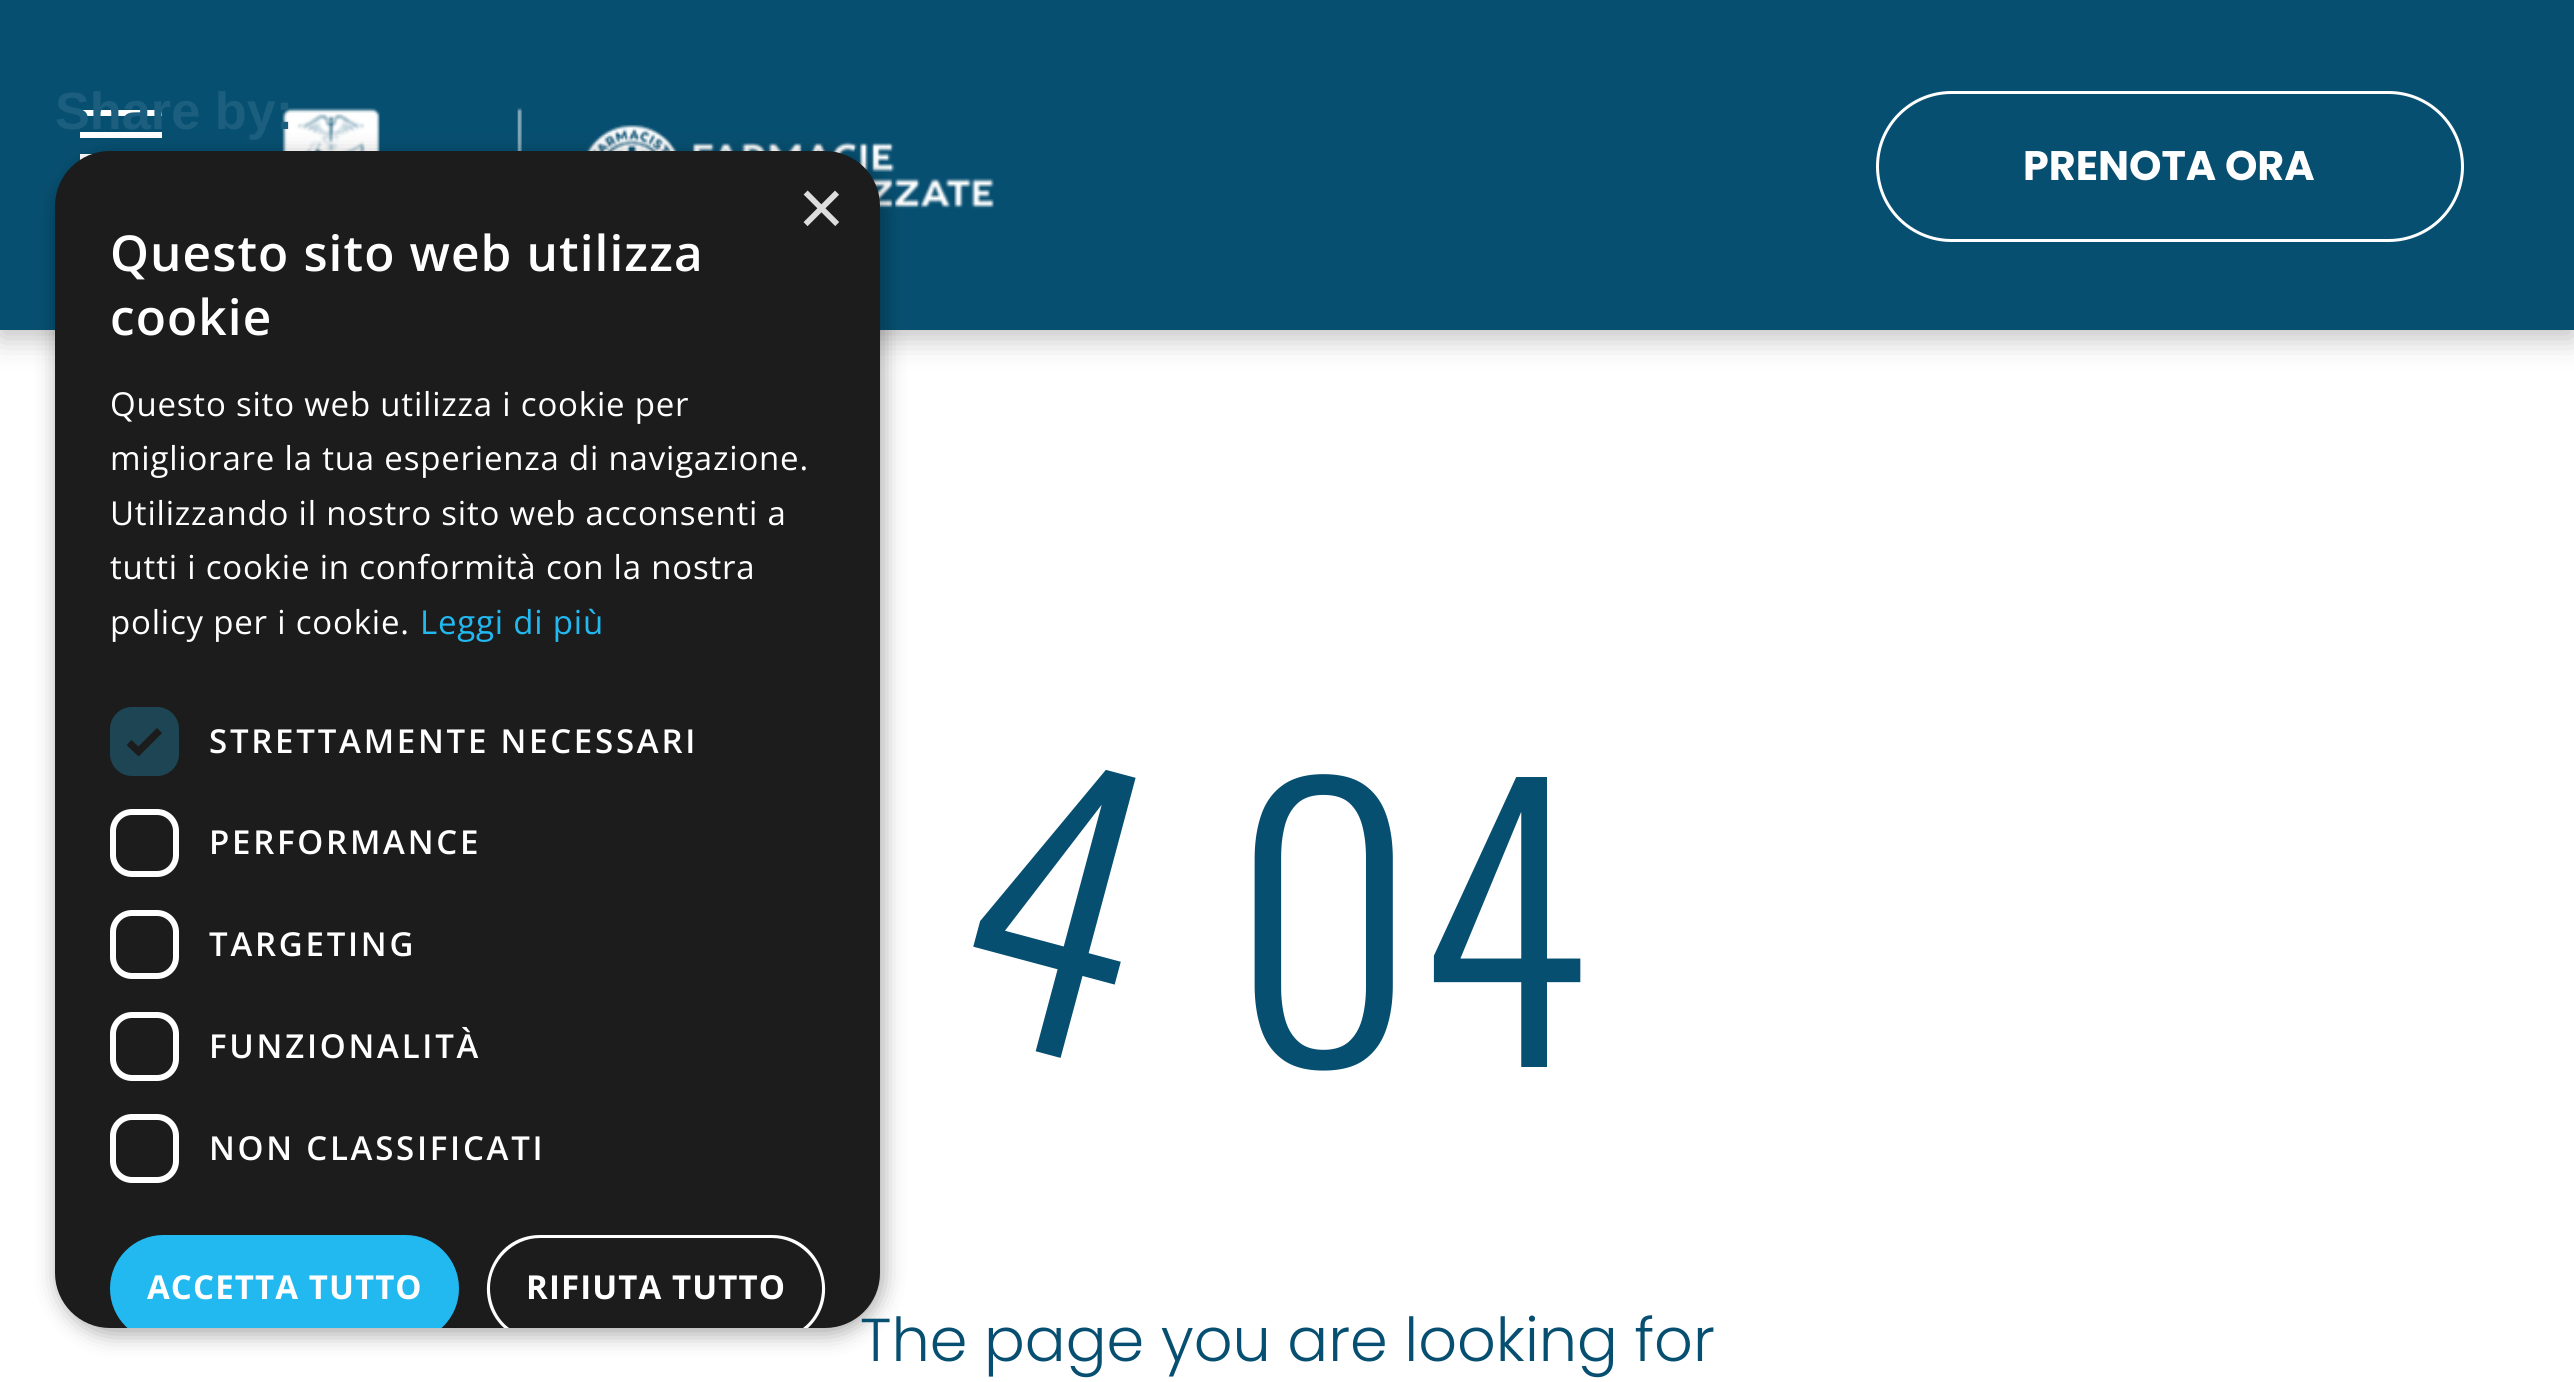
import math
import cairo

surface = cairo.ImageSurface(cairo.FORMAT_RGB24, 2574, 1382)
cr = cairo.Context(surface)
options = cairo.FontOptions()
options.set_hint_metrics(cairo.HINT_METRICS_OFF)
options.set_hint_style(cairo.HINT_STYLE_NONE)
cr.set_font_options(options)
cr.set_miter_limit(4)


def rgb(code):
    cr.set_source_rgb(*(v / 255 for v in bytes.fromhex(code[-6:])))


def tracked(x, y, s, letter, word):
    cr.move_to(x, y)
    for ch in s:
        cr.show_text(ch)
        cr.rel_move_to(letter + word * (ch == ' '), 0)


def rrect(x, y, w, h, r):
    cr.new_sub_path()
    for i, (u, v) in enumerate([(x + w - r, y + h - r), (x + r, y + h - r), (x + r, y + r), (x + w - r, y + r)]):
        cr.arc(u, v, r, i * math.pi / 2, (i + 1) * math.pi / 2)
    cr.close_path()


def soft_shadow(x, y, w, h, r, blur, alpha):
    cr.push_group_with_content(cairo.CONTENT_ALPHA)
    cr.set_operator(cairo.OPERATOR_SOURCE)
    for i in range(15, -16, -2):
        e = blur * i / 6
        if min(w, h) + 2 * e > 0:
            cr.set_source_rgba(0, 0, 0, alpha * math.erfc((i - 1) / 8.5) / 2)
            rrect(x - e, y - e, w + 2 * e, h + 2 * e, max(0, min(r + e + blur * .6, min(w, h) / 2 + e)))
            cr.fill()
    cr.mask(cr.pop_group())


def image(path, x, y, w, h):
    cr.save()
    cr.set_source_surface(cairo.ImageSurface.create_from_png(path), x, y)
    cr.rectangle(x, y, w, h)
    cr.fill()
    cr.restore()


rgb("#ffffff")
cr.paint()
rgb("#000000")
soft_shadow(0, 8, 2574, 330, 0, 15, 0.25)
for x, y, w, h, color in [
    (0, 0, 2574, 330, "#074f71"),
    (80, 132, 82, 6, "#ffffff"),
    (80, 154, 13, 6, "#ffffff"),
]:
    rgb(color)
    cr.rectangle(x, y, w, h)
    cr.fill()
image("img/1.png", 282, 108, 712, 101)
rgb("#000000")
soft_shadow(58, 157, 825, 1177, 55, 11, 0.35)
rgb("#ffffff")
cr.rectangle(80, 110, 82, 6)
cr.fill()
rrect(1877.5, 92.5, 585, 148, 74)
cr.set_line_width(3)
cr.stroke()
cr.select_font_face("Liberation Sans", cairo.FONT_SLANT_NORMAL, cairo.FONT_WEIGHT_BOLD)
cr.set_font_size(52.25)
rgb("#1c5e7d")
cr.move_to(55, 129)
cr.show_text("Share by:")
cr.select_font_face("Poppins", cairo.FONT_SLANT_NORMAL, cairo.FONT_WEIGHT_BOLD)
cr.set_font_size(41.25)
rgb("#ffffff")
cr.move_to(2023, 180)
cr.show_text("PRENOTA ORA")
cr.select_font_face("Oswald Light")
cr.set_font_size(358)
rgb("#074f71")
cr.save()
cr.translate(934, 1024)
cr.rotate(15 * math.pi / 180)
cr.move_to(0, 0)
cr.show_text("4")
cr.restore()
cr.move_to(1231, 1067)
cr.show_text("04")
cr.select_font_face("Poppins Light")
cr.set_font_size(60.5)
cr.move_to(860, 1361)
cr.show_text("The page you are looking for")
rgb("#1c1c1c")
rrect(55, 151, 825, 1177, 55)
cr.fill()
cr.select_font_face("Liberation Sans")
cr.set_font_size(80)
rgb("#dddddd")
cr.move_to(798, 235)
cr.show_text("×")
rrect(113, 1117, 63, 63, 19)
rgb("#ffffff")
cr.set_line_width(6)
cr.stroke()
rrect(113, 1015, 63, 63, 19)
cr.stroke()
rrect(113, 913, 63, 63, 19)
cr.stroke()
rrect(113, 812, 63, 62, 19)
cr.stroke()
rgb("#1e4553")
rrect(110, 707, 69, 69, 22)
cr.fill()
cr.new_path()
cr.move_to(129, 742.5)
cr.line_to(138.5, 751.5)
cr.line_to(159.5, 730.5)
rgb("#1c1c1c")
cr.set_line_width(7.2)
cr.stroke()
rgb("#ffffff")
cr.new_path()
cr.move_to(540, 1235)
cr.curve_to(491, 1235, 469, 1296, 504, 1328)
cr.line_to(509, 1328)
cr.curve_to(497, 1319, 490, 1304, 490, 1288)
cr.curve_to(490, 1261, 513, 1238, 540, 1238)
cr.line_to(772, 1238)
cr.curve_to(799, 1238, 822, 1261, 822, 1288)
cr.curve_to(822, 1304, 815, 1319, 803, 1328)
cr.line_to(808, 1328)
cr.curve_to(843, 1296, 821, 1235, 772, 1235)
cr.close_path()
cr.fill()
cr.select_font_face("Open Sans", cairo.FONT_SLANT_NORMAL, cairo.FONT_WEIGHT_BOLD)
cr.set_font_size(33)
tracked(526, 1299, "RIFIUTA TUTTO", 1.1, 0)
cr.save()
rrect(55, 151, 825, 1177, 55)
cr.clip()
rgb("#22b8f0")
rrect(110, 1235, 349, 107, 53.5)
cr.fill()
cr.restore()
tracked(147, 1299, "ACCETTA TUTTO", 1.1, 0)
cr.select_font_face("Open Sans SemiBold")
for x, y, s in [
    (209, 1160, "NON CLASSIFICATI"),
    (209, 1058, "FUNZIONALITÀ"),
    (209, 956, "TARGETING"),
    (209, 854, "PERFORMANCE"),
    (209, 753, "STRETTAMENTE NECESSARI"),
]:
    tracked(x, y, s, 2.75, 0)
cr.select_font_face("Open Sans")
rgb("#22b8f0")
tracked(420, 634, "Leggi di più", 0.8, 0)
rgb("#ffffff")
for x, y, s in [
    (110, 634, "policy per i cookie."),
    (110, 579, "tutti i cookie in conformità con la nostra"),
    (110, 525, "Utilizzando il nostro sito web acconsenti a"),
    (110, 470, "migliorare la tua esperienza di navigazione."),
    (110, 416, "Questo sito web utilizza i cookie per"),
]:
    tracked(x, y, s, 0.8, 0)
cr.select_font_face("Open Sans SemiBold")
cr.set_font_size(49.5)
tracked(110, 335, "cookie", 1.1, 0)
tracked(110, 271, "Questo sito web utilizza", 1.1, 0)
surface.write_to_png("page.png")
